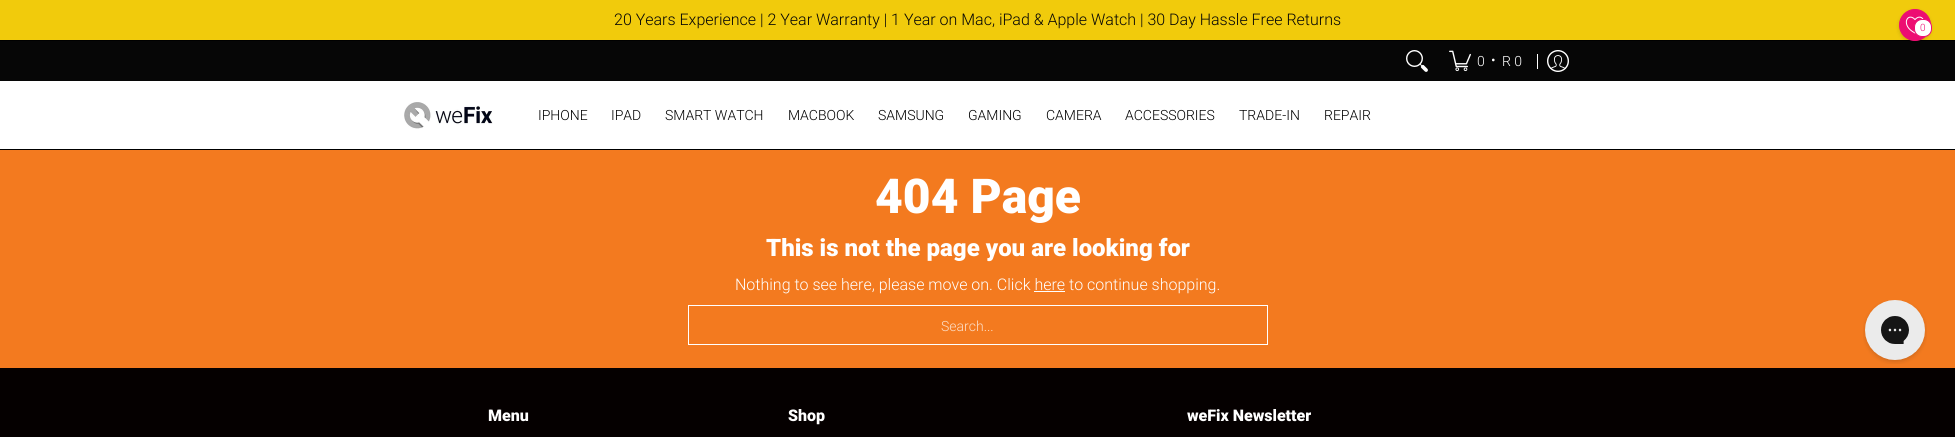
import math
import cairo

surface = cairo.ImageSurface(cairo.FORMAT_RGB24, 1955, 437)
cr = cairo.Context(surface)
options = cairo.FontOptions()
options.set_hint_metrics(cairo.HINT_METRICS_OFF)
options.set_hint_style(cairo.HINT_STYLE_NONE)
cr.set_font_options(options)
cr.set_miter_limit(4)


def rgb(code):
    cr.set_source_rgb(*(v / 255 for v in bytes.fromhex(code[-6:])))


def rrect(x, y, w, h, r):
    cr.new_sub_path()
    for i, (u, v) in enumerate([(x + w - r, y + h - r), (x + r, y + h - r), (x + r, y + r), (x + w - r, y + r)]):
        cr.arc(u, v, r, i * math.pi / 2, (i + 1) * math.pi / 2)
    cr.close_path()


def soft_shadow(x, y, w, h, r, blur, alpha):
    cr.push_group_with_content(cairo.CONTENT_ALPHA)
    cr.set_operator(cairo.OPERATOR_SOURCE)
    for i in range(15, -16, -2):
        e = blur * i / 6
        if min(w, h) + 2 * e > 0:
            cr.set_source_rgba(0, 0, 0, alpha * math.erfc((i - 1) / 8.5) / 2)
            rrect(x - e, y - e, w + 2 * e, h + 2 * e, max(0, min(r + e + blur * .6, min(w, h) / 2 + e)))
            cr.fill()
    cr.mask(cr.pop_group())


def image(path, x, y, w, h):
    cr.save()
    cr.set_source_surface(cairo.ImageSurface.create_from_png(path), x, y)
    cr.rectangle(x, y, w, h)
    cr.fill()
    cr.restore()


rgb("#ffffff")
cr.paint()
for x, y, w, h, color in [
    (0, 0, 1955, 40, "#f1cb0c"),
    (0, 40, 1955, 1, "#000000"),
    (0, 41, 1955, 40, "#060606"),
]:
    rgb(color)
    cr.rectangle(x, y, w, h)
    cr.fill()
rgb("#000000")
soft_shadow(1899, 11, 32, 32, 16, 2, 0.15)
rgb("#ed0d72")
cr.arc(1915, 25, 15.5, 0, 2 * math.pi)
cr.fill_preserve()
cr.set_line_width(1)
cr.stroke()
cr.new_path()
cr.move_to(1915, 33)
cr.curve_to(1900, 25.5, 1907.5, 11.5, 1915, 19.5)
cr.curve_to(1922.5, 11.5, 1930, 25.5, 1915, 33)
cr.close_path()
rgb("#ffffff")
cr.stroke()
rrect(1914.5, 19.5, 17, 17, 7.5)
cr.fill_preserve()
rgb("#ed0d72")
cr.stroke()
image("img/1.png", 1406, 50, 22, 22)
image("img/2.png", 1449, 50, 22, 22)
rgb("#ffffff")
cr.rectangle(1537, 54, 1, 15)
cr.fill()
image("img/3.png", 1547, 50, 22, 22)
rgb("#000000")
cr.rectangle(0, 149, 1955, 1)
cr.fill()
image("img/4.png", 404, 102, 89, 27)
rgb("#f37a1f")
cr.rectangle(0, 150, 1955, 218)
cr.fill()
rgb("#ffffff")
cr.rectangle(1034, 291, 31, 1)
cr.fill()
cr.rectangle(688.5, 305.5, 579, 39)
cr.stroke()
image("img/5.png", 1863, 300, 64, 64)
rgb("#050000")
cr.rectangle(0, 368, 1955, 69)
cr.fill()
cr.select_font_face("Roboto Light")
cr.set_font_size(16)
rgb("#060606")
cr.move_to(614, 25)
cr.show_text("20 Years Experience | 2 Year Warranty | 1 Year on Mac, iPad & Apple Watch | 30 Day Hassle Free Returns")
cr.set_font_size(10)
rgb("#ed0d72")
cr.move_to(1920, 31)
cr.show_text("0")
cr.set_font_size(14)
rgb("#ffffff")
for x, y, s in [
    (1477, 66, "0"),
    (1491, 65, "•"),
    (1502, 66, "R 0"),
]:
    cr.move_to(x, y)
    cr.show_text(s)
rgb("#000000")
for x, y, s in [
    (538, 120, "IPHONE"),
    (611, 120, "IPAD"),
    (665, 120, "SMART WATCH"),
    (788, 120, "MACBOOK"),
    (878, 120, "SAMSUNG"),
    (968, 120, "GAMING"),
    (1046, 120, "CAMERA"),
    (1125, 120, "ACCESSORIES"),
    (1239, 120, "TRADE-IN"),
    (1324, 120, "REPAIR"),
]:
    cr.move_to(x, y)
    cr.show_text(s)
cr.select_font_face("Roboto Black")
cr.set_font_size(48)
rgb("#ffffff")
cr.move_to(875, 213)
cr.show_text("404 Page")
cr.set_font_size(24)
cr.move_to(766, 256)
cr.show_text("This is not the page you are looking for")
cr.select_font_face("Roboto Light")
cr.set_font_size(16)
cr.move_to(735, 290)
cr.show_text("Nothing to see here, please move on. Click here to continue shopping.")
cr.set_font_size(14)
rgb("#fcdec7")
cr.move_to(941, 331)
cr.show_text("Search...")
cr.select_font_face("Roboto Black")
cr.set_font_size(16)
rgb("#ffffff")
for x, y, s in [
    (488, 421, "Menu"),
    (788, 421, "Shop"),
    (1187, 421, "weFix Newsletter"),
]:
    cr.move_to(x, y)
    cr.show_text(s)
surface.write_to_png("page.png")
